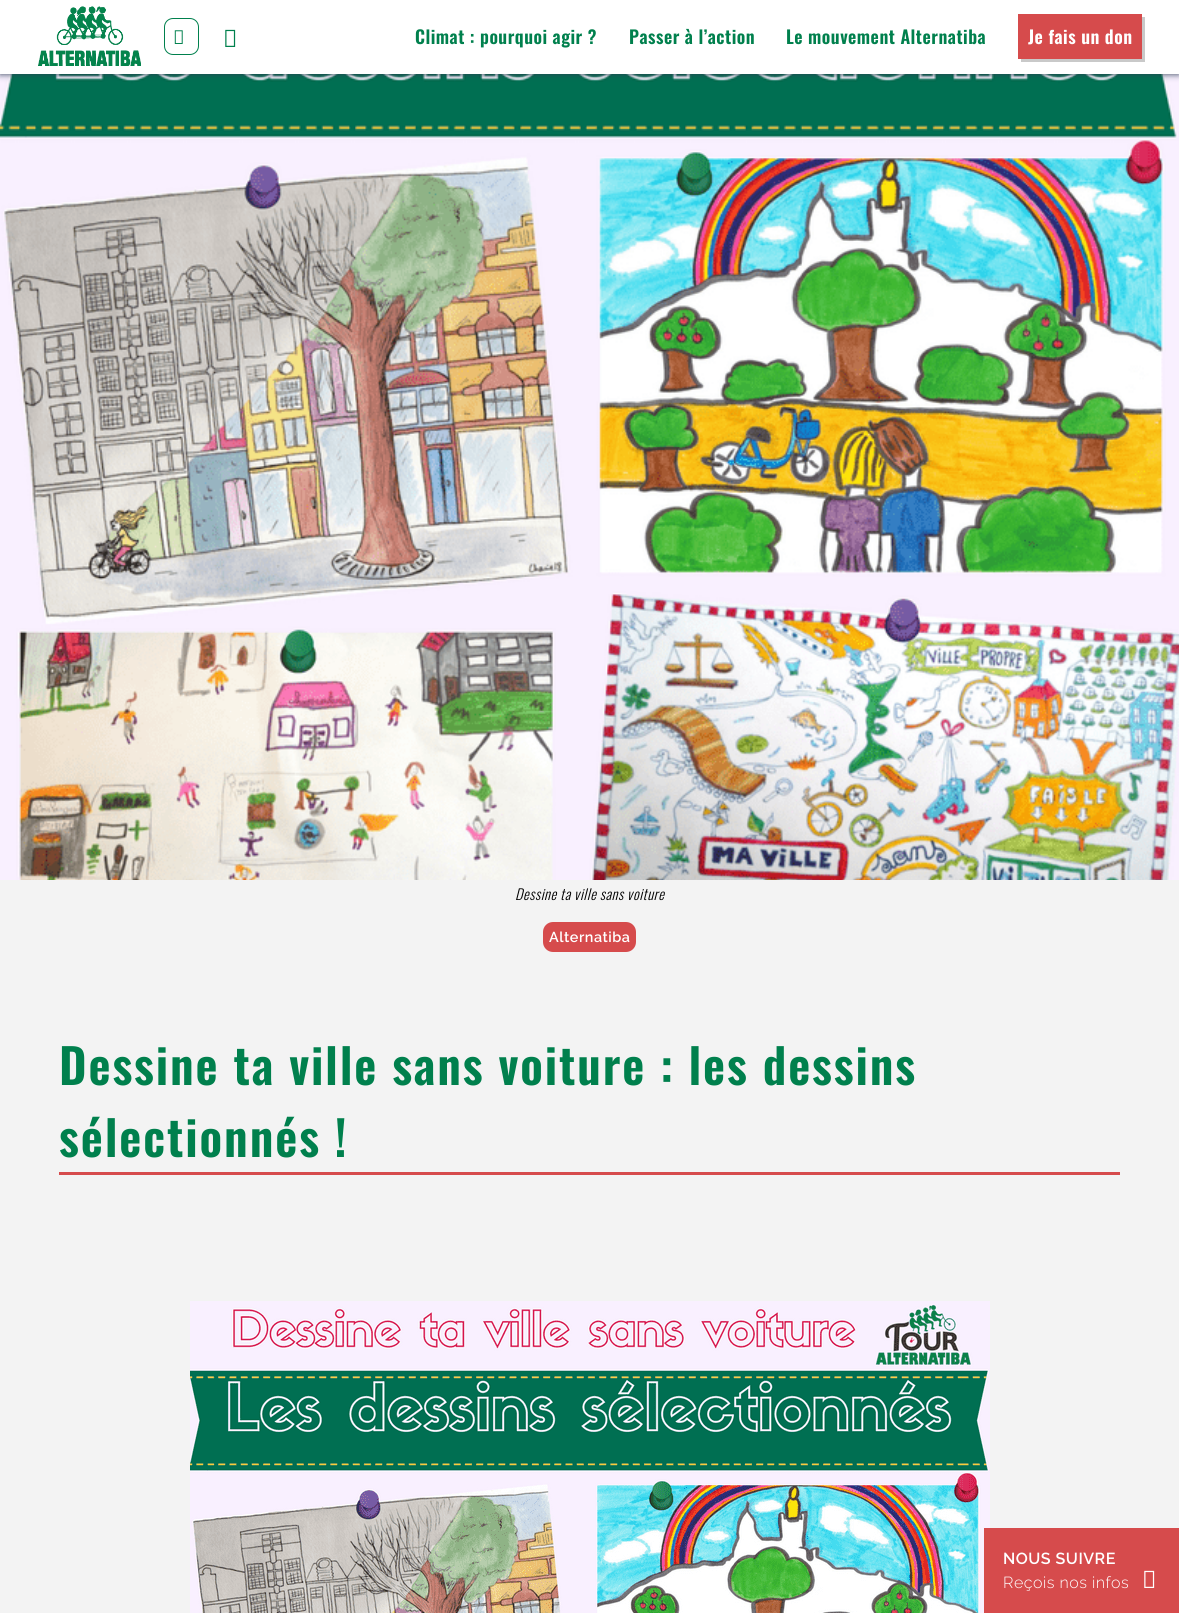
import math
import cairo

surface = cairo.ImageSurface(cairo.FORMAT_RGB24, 1179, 1613)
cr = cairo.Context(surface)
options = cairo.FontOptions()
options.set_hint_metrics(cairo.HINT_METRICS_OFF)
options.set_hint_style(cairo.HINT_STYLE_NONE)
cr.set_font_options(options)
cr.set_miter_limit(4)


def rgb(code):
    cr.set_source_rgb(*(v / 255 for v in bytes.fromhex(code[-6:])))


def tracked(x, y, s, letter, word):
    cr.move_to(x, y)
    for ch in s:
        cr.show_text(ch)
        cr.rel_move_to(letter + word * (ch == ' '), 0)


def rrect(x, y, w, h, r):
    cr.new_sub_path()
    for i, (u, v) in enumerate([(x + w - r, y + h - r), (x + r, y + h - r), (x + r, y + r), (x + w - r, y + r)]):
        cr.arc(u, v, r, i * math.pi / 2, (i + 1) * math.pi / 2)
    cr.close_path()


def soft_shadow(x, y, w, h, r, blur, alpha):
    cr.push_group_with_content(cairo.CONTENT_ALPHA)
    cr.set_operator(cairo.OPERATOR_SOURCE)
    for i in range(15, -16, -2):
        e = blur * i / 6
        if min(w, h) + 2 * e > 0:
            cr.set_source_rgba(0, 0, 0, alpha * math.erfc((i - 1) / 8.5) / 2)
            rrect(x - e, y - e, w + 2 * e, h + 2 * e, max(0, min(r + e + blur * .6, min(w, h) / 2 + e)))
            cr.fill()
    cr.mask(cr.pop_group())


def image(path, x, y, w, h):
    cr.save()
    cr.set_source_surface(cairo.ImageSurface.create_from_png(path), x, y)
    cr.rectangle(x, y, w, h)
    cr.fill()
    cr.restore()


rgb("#f3f3f3")
cr.paint()
image("img/4.png", 0, 74, 1179, 806)
rgb("#2d3f53")
soft_shadow(0, 0, 1179, 74, 0, 3.5, 1)
rgb("#ffffff")
cr.rectangle(0, 0, 1179, 74)
cr.fill()
image("img/1.png", 38, 6, 103, 60)
rrect(164.5, 18.5, 34, 36, 8.5)
rgb("#00804d")
cr.set_line_width(1)
cr.stroke()
image("img/2.png", 174, 30, 9, 14)
image("img/3.png", 225, 29, 11, 18)
rgb("#c9c9c9")
cr.new_path()
cr.move_to(1021, 59)
cr.line_to(1021, 62)
cr.line_to(1145, 62)
cr.line_to(1145, 17)
cr.line_to(1142, 17)
cr.line_to(1142, 59)
cr.close_path()
cr.fill()
rgb("#d64b4c")
cr.rectangle(1018, 14, 124, 45)
cr.fill()
rrect(543, 922, 93, 30, 10)
cr.fill()
cr.rectangle(59, 1172, 1061, 3)
cr.fill()
image("img/5.png", 190, 1301, 800, 312)
cr.rectangle(984, 1528, 195, 85)
cr.fill()
image("img/6.png", 1144, 1570, 11, 18)
cr.select_font_face("Oswald SemiBold")
cr.set_font_size(18)
rgb("#00804d")
for x, y, s in [
    (415, 44, "Climat : pourquoi agir ?"),
    (629, 44, "Passer à l’action"),
    (786, 44, "Le mouvement Alternatiba"),
]:
    tracked(x, y, s, 0.5, 0)
rgb("#ffffff")
tracked(1028, 44, "Je fais un don", 0.5, 0)
cr.select_font_face("Oswald Light", cairo.FONT_SLANT_ITALIC)
cr.set_font_size(14.4)
rgb("#000000")
tracked(515, 900, "Dessine ta ville sans voiture", 0.5, 0)
cr.select_font_face("Raleway SemiBold")
rgb("#ffffff")
tracked(549, 942, "Alternatiba", 0.5, 0)
cr.select_font_face("Oswald SemiBold")
cr.set_font_size(48)
rgb("#00804d")
tracked(59, 1085, "Dessine ta ville sans voiture : les dessins", 1.9, 0)
tracked(59, 1157, "sélectionnés !", 1.9, 0)
cr.select_font_face("Raleway SemiBold")
cr.set_font_size(16)
rgb("#ffffff")
tracked(1003, 1564, "NOUS SUIVRE", 0.5, 0)
cr.select_font_face("Raleway Light")
tracked(1003, 1588, "Reçois nos infos", 0.5, 0)
surface.write_to_png("page.png")
